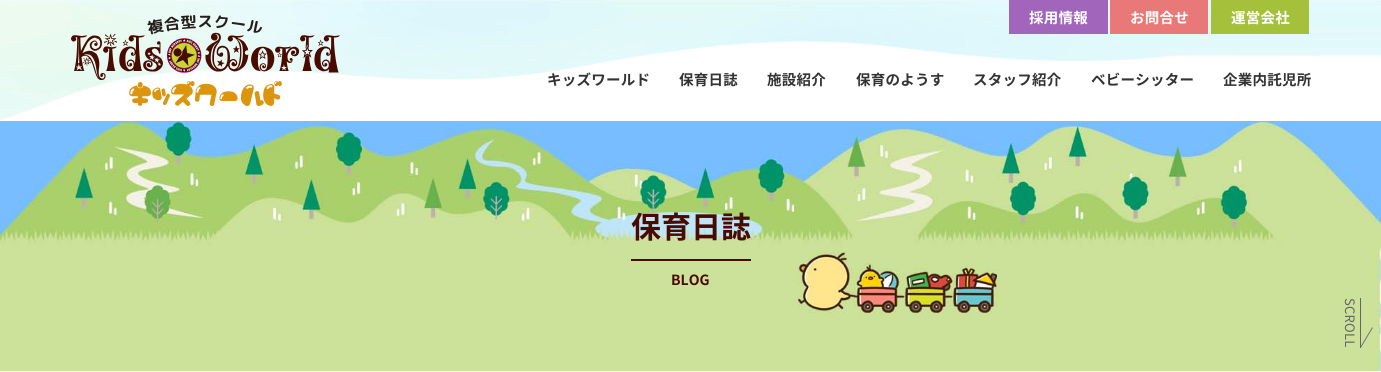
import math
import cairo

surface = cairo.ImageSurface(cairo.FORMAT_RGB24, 1381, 372)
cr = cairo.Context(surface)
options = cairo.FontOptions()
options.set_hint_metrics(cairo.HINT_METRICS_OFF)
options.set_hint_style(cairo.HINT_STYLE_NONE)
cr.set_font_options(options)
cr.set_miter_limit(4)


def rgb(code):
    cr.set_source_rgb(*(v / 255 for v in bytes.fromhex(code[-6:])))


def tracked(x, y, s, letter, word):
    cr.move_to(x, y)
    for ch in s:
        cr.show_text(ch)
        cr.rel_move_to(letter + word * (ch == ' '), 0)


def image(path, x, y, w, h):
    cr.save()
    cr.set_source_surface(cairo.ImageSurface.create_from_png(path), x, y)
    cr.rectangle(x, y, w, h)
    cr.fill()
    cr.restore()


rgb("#ffffff")
cr.paint()
image("img/1.png", 0, 0, 1381, 121)
image("img/2.png", 71, 15, 269, 91)
for x, y, w, h, color in [
    (1009, 0, 99, 34, "#a166bb"),
    (1110, 0, 98, 34, "#e97878"),
    (1211, 0, 98, 34, "#a5c13c"),
]:
    rgb(color)
    cr.rectangle(x, y, w, h)
    cr.fill()
image("img/3.png", 0, 121, 1381, 250)
rgb("#490a00")
cr.rectangle(631, 259, 120, 2)
cr.fill()
rgb("#666666")
cr.new_path()
cr.move_to(1372, 327.5)
cr.line_to(1373, 327.5)
cr.line_to(1361, 347.5)
cr.line_to(1360, 347.5)
cr.close_path()
cr.fill()
cr.rectangle(1360, 298, 1, 50)
cr.fill()
cr.select_font_face("Noto Sans JP", cairo.FONT_SLANT_NORMAL, cairo.FONT_WEIGHT_BOLD)
cr.set_font_size(14.5)
rgb("#ffffff")
for x, y, s in [
    (1029, 23, "採用情報"),
    (1130, 23, "お問合せ"),
    (1231, 23, "運営会社"),
]:
    tracked(x, y, s, 0.25, 0)
rgb("#333333")
for x, y, s in [
    (547, 85, "キッズワールド"),
    (679, 85, "保育日誌"),
    (767, 85, "施設紹介"),
    (856, 85, "保育のようす"),
    (973, 85, "スタッフ紹介"),
    (1091, 85, "ベビーシッター"),
    (1223, 85, "企業内託児所"),
]:
    tracked(x, y, s, 0.25, 0)
cr.set_font_size(30)
rgb("#490a00")
cr.move_to(631, 238)
cr.show_text("保育日誌")
cr.set_font_size(14)
cr.move_to(671, 285)
cr.show_text("BLOG")
cr.select_font_face("Noto Sans JP")
cr.set_font_size(13)
rgb("#666666")
cr.save()
cr.translate(1345, 298)
cr.rotate(90 * math.pi / 180)
tracked(0, 0, "SCROLL", 0.25, 0)
cr.restore()
surface.write_to_png("page.png")
